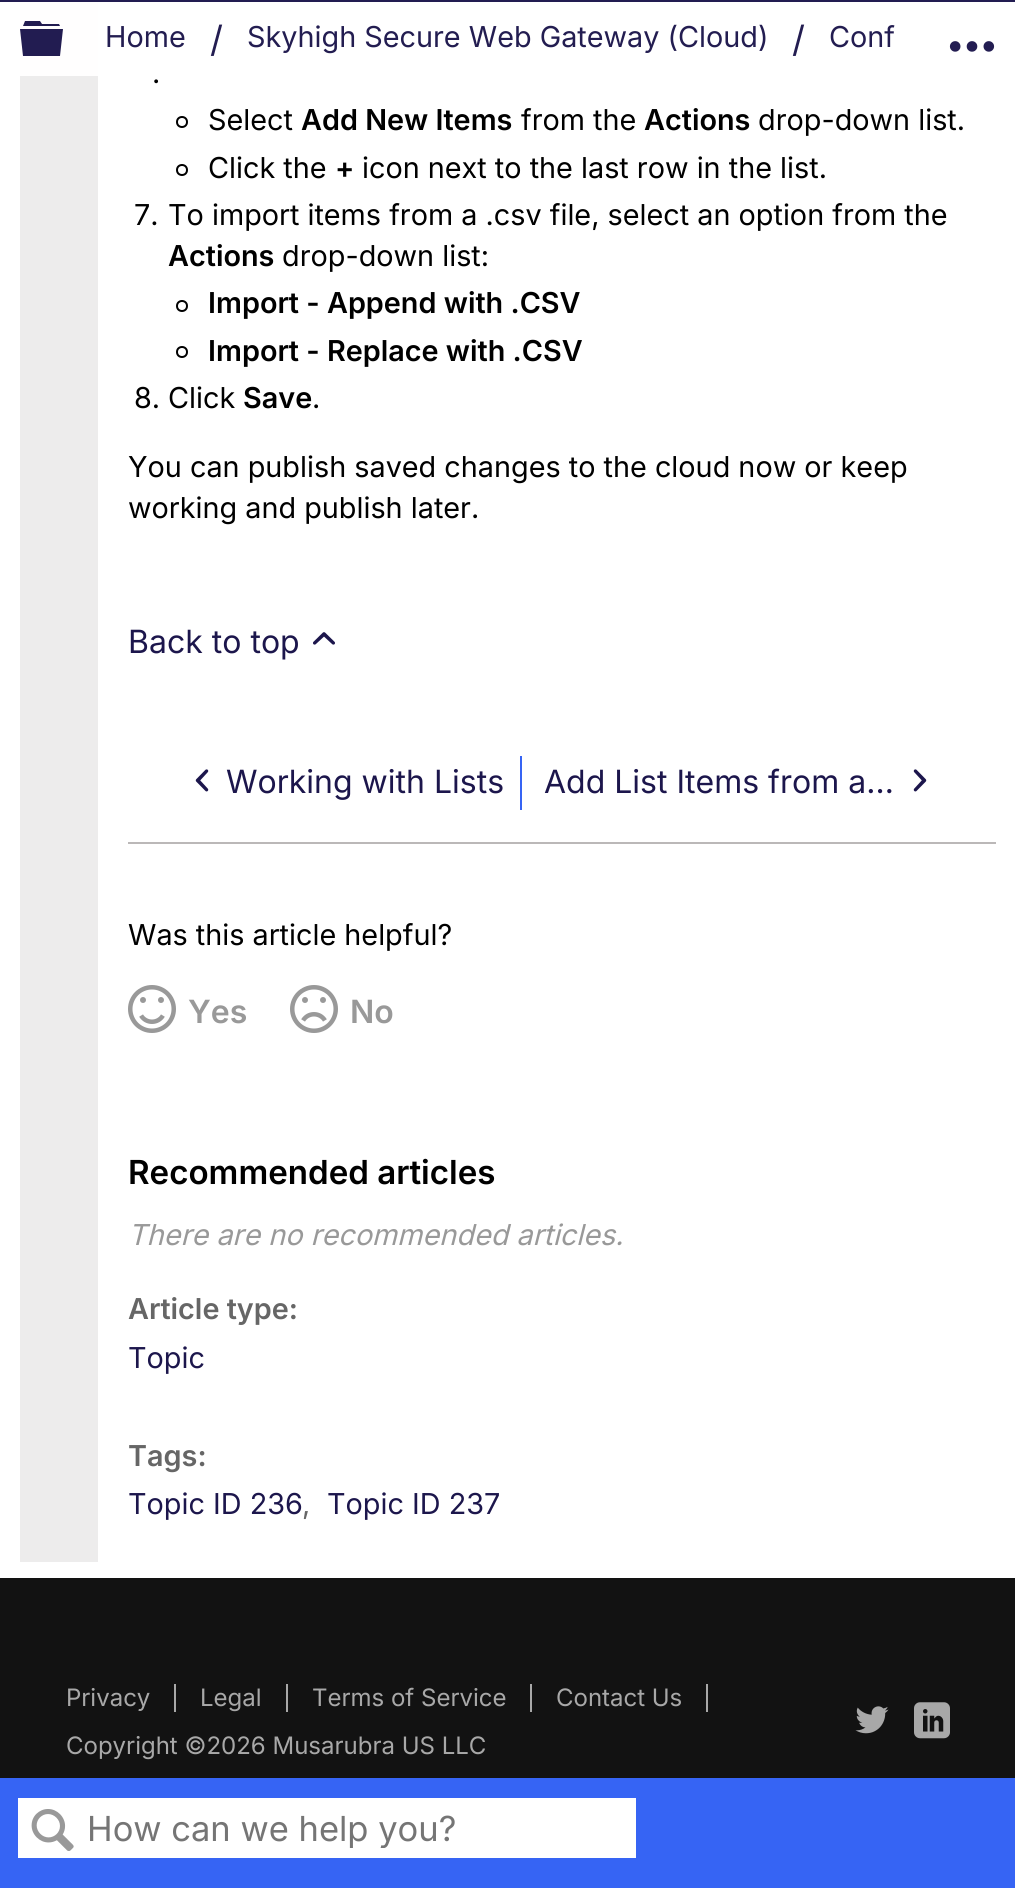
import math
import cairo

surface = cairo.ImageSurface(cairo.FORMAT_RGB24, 1015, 1888)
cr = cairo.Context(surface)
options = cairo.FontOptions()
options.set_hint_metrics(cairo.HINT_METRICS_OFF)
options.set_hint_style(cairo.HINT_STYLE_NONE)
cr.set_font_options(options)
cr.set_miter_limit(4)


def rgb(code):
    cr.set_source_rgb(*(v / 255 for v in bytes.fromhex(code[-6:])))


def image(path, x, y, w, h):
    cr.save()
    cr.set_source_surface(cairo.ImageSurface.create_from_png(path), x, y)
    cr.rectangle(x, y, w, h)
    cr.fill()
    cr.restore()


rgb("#ffffff")
cr.paint()
rgb("#edecec")
cr.rectangle(20, 0, 78, 1562)
cr.fill()
cr.set_source_rgba(1, 1, 1, 0.97)
cr.rectangle(20, 0, 78, 76)
cr.fill()
cr.set_source_rgba(0.11, 0.086, 0.298, 0.97)
cr.rectangle(0, 0, 1015, 2)
cr.fill()
rgb("#221c51")
cr.new_path()
cr.move_to(20, 29)
cr.line_to(63, 29)
cr.line_to(60, 56)
cr.line_to(23, 56)
cr.close_path()
cr.move_to(59, 24)
cr.line_to(60, 26)
cr.line_to(23, 26)
cr.line_to(25, 21)
cr.line_to(40, 21)
cr.line_to(42, 24)
cr.close_path()
cr.fill()
image("img/1.png", 949, 41, 46, 11)
rgb("#3664f4")
cr.rectangle(0, 1778, 1015, 110)
cr.fill()
rgb("#ffffff")
cr.rectangle(18, 1798, 618, 60)
cr.fill()
image("img/2.png", 31, 1809, 43, 42)
cr.arc(182, 122, 5, 0, 2 * math.pi)
rgb("#000000")
cr.stroke()
cr.arc(182, 170, 5, 0, 2 * math.pi)
cr.stroke()
cr.arc(182, 306, 5, 0, 2 * math.pi)
cr.stroke()
cr.arc(182, 352, 5, 0, 2 * math.pi)
cr.stroke()
rgb("#bbb8b8")
cr.rectangle(128, 842, 868, 2)
cr.fill()
image("img/3.png", 313, 632, 22, 13)
rgb("#3664f4")
cr.rectangle(520, 756, 2, 54)
cr.fill()
image("img/4.png", 195, 769, 14, 23)
image("img/5.png", 913, 769, 14, 23)
image("img/6.png", 128, 985, 48, 48)
image("img/7.png", 290, 985, 48, 48)
for x, y, w, h, color in [
    (0, 1578, 1015, 200, "#121212"),
    (174, 1684, 2, 28, "#a8a8a8"),
    (286, 1684, 2, 28, "#a8a8a8"),
    (530, 1684, 2, 28, "#a8a8a8"),
    (706, 1684, 2, 28, "#a8a8a8"),
]:
    rgb(color)
    cr.rectangle(x, y, w, h)
    cr.fill()
image("img/8.png", 855, 1706, 34, 28)
image("img/9.png", 914, 1702, 36, 37)
cr.select_font_face("Inter")
cr.set_font_size(28.8)
rgb("#231d51")
cr.move_to(105, 47)
cr.show_text("Home")
cr.set_font_size(36)
cr.move_to(210, 52)
cr.show_text("/")
cr.set_font_size(28.8)
cr.move_to(247, 47)
cr.show_text("Skyhigh Secure Web Gateway (Cloud)")
cr.set_font_size(36)
cr.move_to(792, 52)
cr.show_text("/")
cr.set_font_size(28.8)
cr.move_to(829, 47)
cr.show_text("Conf")
cr.save()
cr.rectangle(70, 1806, 550, 42)
cr.clip()
cr.set_font_size(34.5)
rgb("#757575")
cr.move_to(87, 1841)
cr.show_text("How can we help you?")
cr.restore()
rgb("#000000")
cr.move_to(152, 83)
cr.show_text(".")
cr.move_to(208, 130)
cr.show_text("Select")
cr.select_font_face("Inter SemiBold")
cr.move_to(301, 130)
cr.show_text("Add New Items")
cr.select_font_face("Inter")
cr.move_to(521, 130)
cr.show_text("from the")
cr.select_font_face("Inter SemiBold")
cr.move_to(644, 130)
cr.show_text("Actions")
cr.select_font_face("Inter")
cr.move_to(758, 130)
cr.show_text("drop-down list.")
cr.move_to(208, 178)
cr.show_text("Click the")
cr.select_font_face("Inter SemiBold")
cr.move_to(335, 178)
cr.show_text("+")
cr.select_font_face("Inter")
for x, y, s in [
    (362, 178, "icon next to the last row in the list."),
    (134, 225, "7."),
    (168, 225, "To import items from a .csv file, select an option from the"),
]:
    cr.move_to(x, y)
    cr.show_text(s)
cr.select_font_face("Inter SemiBold")
cr.move_to(168, 266)
cr.show_text("Actions")
cr.select_font_face("Inter")
cr.move_to(282, 266)
cr.show_text("drop-down list:")
cr.select_font_face("Inter SemiBold")
cr.move_to(208, 313)
cr.show_text("Import - Append with .CSV")
cr.move_to(208, 361)
cr.show_text("Import - Replace with .CSV")
cr.select_font_face("Inter")
cr.move_to(134, 408)
cr.show_text("8.")
cr.move_to(168, 408)
cr.show_text("Click")
cr.select_font_face("Inter SemiBold")
cr.move_to(243, 408)
cr.show_text("Save")
cr.select_font_face("Inter")
for x, y, s in [
    (312, 408, "."),
    (128, 477, "You can publish saved changes to the cloud now or keep"),
    (128, 518, "working and publish later."),
]:
    cr.move_to(x, y)
    cr.show_text(s)
cr.set_font_size(32)
rgb("#1c164c")
for x, y, s in [
    (128, 653, "Back to top"),
    (226, 793, "Working with Lists"),
    (544, 793, "Add List Items from a…"),
]:
    cr.move_to(x, y)
    cr.show_text(s)
cr.set_font_size(28.8)
rgb("#000000")
cr.move_to(128, 945)
cr.show_text("Was this article helpful?")
cr.select_font_face("Inter SemiBold")
cr.set_font_size(32)
rgb("#999999")
cr.move_to(188, 1023)
cr.show_text("Yes")
cr.move_to(350, 1023)
cr.show_text("No")
cr.set_font_size(33.1)
rgb("#000000")
cr.move_to(128, 1184)
cr.show_text("Recommended articles")
cr.select_font_face("Inter", cairo.FONT_SLANT_ITALIC)
cr.set_font_size(28.8)
rgb("#999999")
cr.move_to(128, 1245)
cr.show_text("There are no recommended articles.")
cr.select_font_face("Inter SemiBold")
rgb("#666666")
cr.move_to(128, 1319)
cr.show_text("Article type:")
cr.select_font_face("Inter")
rgb("#1c164c")
cr.move_to(128, 1368)
cr.show_text("Topic")
cr.select_font_face("Inter SemiBold")
rgb("#666666")
cr.move_to(128, 1466)
cr.show_text("Tags:")
cr.select_font_face("Inter")
rgb("#1c164c")
cr.move_to(128, 1514)
cr.show_text("Topic ID 236")
rgb("#666666")
cr.move_to(302, 1514)
cr.show_text(",")
rgb("#1c164c")
cr.move_to(327, 1514)
cr.show_text("Topic ID 237")
cr.set_font_size(24)
rgb("#a8a8a8")
for x, y, s in [
    (66, 1706, "Privacy"),
    (200, 1706, "Legal"),
    (312, 1706, "Terms of Service"),
    (556, 1706, "Contact Us"),
    (66, 1754, "Copyright ©2026 Musarubra US LLC"),
]:
    cr.move_to(x, y)
    cr.show_text(s)
surface.write_to_png("page.png")
